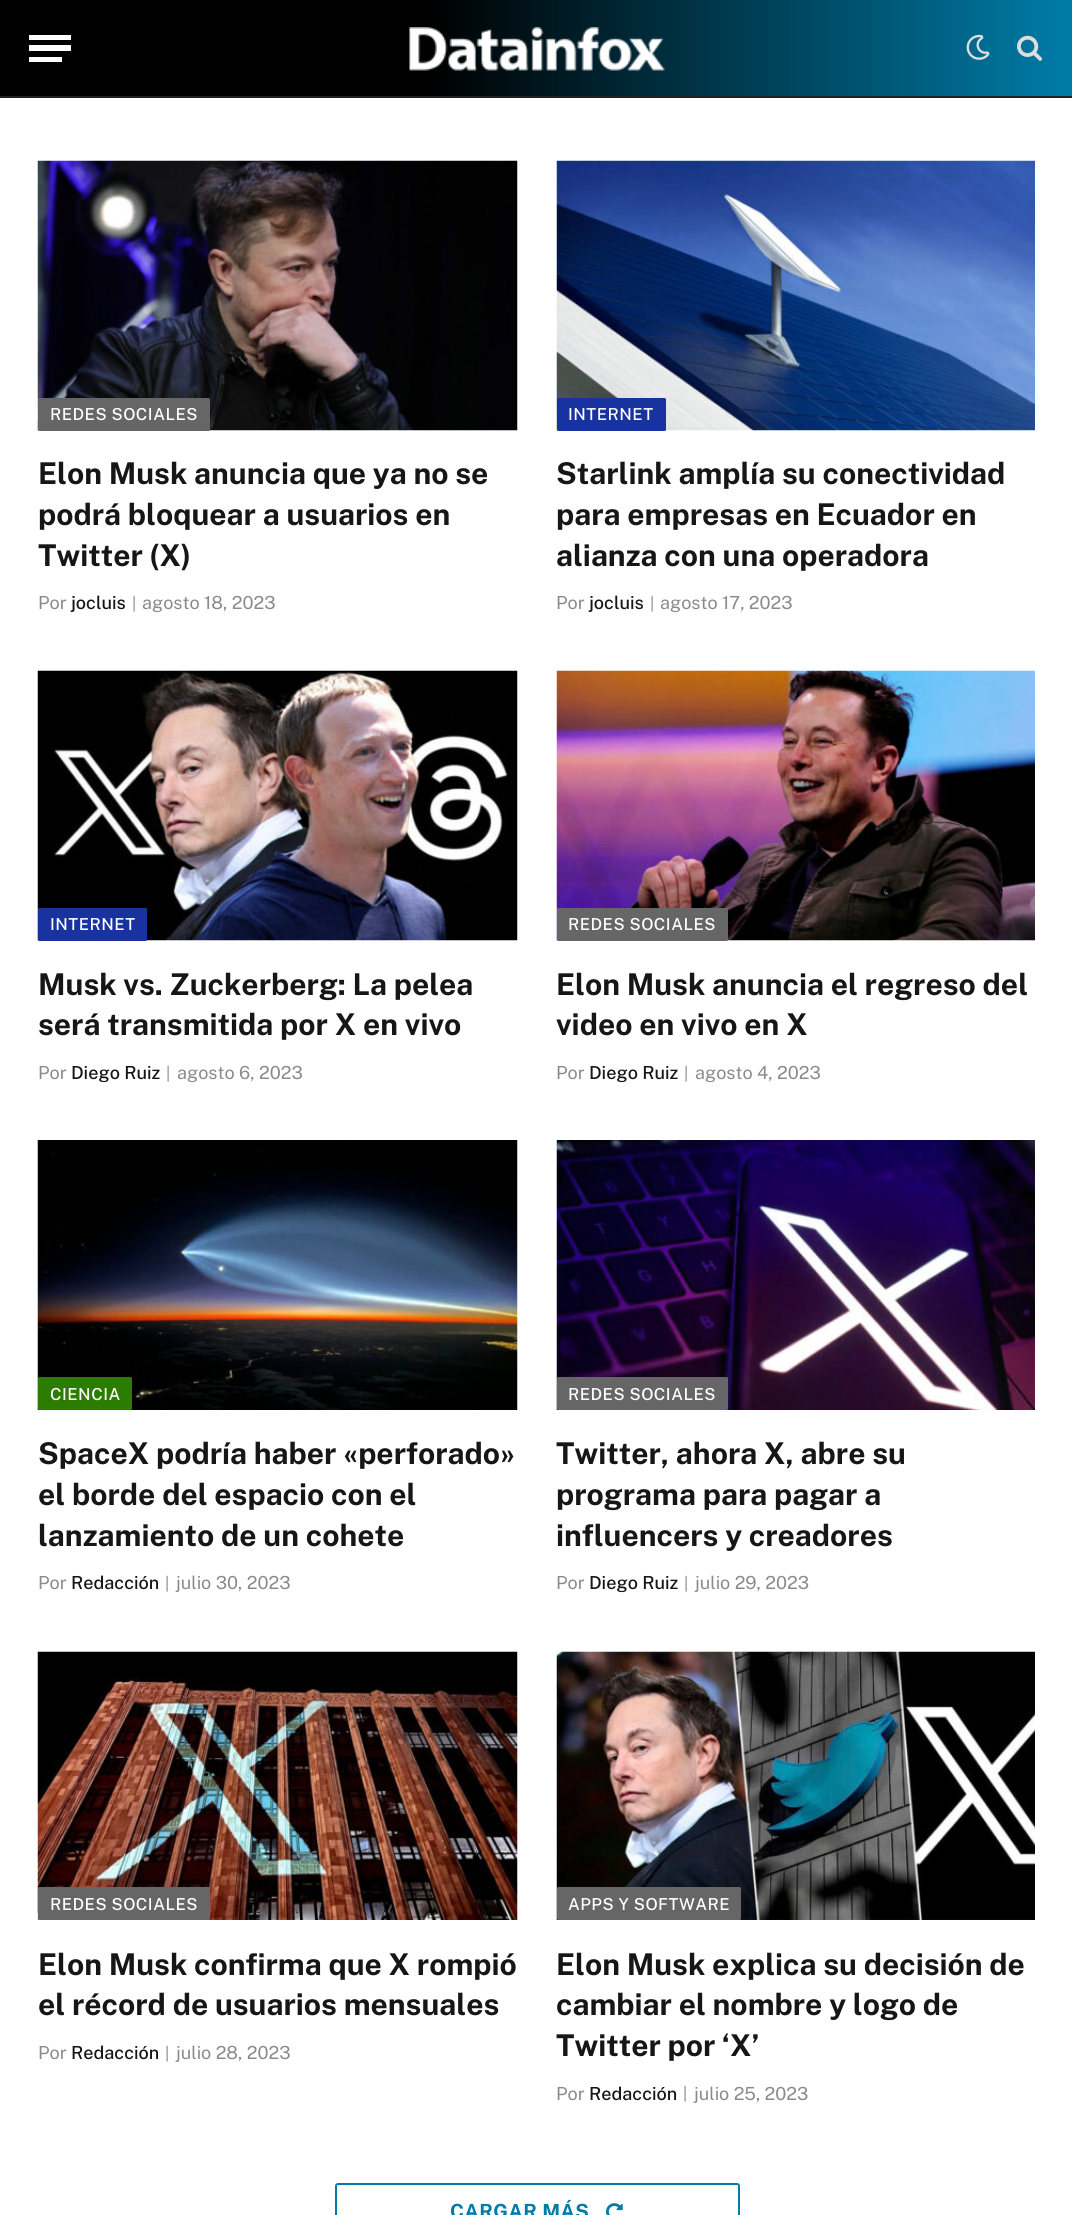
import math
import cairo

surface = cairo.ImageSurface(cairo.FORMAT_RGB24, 1072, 2215)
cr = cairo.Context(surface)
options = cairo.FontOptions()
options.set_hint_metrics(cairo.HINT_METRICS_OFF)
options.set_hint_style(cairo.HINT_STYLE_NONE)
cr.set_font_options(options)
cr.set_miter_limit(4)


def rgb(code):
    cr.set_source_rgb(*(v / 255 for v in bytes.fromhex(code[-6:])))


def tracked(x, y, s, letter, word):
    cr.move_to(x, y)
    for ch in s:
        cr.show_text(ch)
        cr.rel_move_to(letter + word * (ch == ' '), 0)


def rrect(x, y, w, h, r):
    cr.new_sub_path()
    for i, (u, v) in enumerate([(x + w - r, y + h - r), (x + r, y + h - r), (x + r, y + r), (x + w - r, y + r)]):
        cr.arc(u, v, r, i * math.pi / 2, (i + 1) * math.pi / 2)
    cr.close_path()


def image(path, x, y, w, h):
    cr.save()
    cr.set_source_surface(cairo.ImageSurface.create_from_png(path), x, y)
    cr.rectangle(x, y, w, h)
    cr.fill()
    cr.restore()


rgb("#ffffff")
cr.paint()
gradient = cairo.LinearGradient(0, 48, 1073, 48)
gradient.add_color_stop_rgba(0.4, 0, 0, 0, 1)
gradient.add_color_stop_rgba(1, 0, 0.486, 0.659, 1)
cr.set_source(gradient)
cr.rectangle(0, 0, 1072, 96)
cr.fill()
for x, y, w, h, color in [
    (0, 96, 1072, 2, "#222222"),
    (29, 57, 33, 5, "#ffffff"),
    (29, 35, 42, 5, "#ffffff"),
    (29, 45, 42, 6, "#ffffff"),
]:
    rgb(color)
    cr.rectangle(x, y, w, h)
    cr.fill()
image("img/1.png", 409, 27, 256, 44)
image("img/2.png", 966, 34, 24, 26)
image("img/3.png", 1017, 35, 25, 26)
image("img/4.png", 37, 160, 481, 271)
rgb("#666666")
rrect(38, 398, 172, 33, 1.5)
cr.fill()
image("img/5.png", 556, 160, 479, 271)
rgb("#1833a0")
rrect(557, 398, 109, 33, 1.5)
cr.fill()
image("img/6.png", 37, 670, 481, 271)
rrect(38, 908, 109, 33, 1.5)
cr.fill()
image("img/7.png", 556, 670, 479, 271)
rgb("#666666")
rrect(557, 908, 171, 33, 1.5)
cr.fill()
image("img/8.png", 37, 1140, 481, 270)
rgb("#2b7c00")
rrect(38, 1377, 94, 33, 1.5)
cr.fill()
image("img/9.png", 556, 1140, 479, 270)
rgb("#666666")
rrect(557, 1377, 171, 33, 1.5)
cr.fill()
image("img/10.png", 37, 1651, 481, 269)
rrect(38, 1887, 172, 33, 1.5)
cr.fill()
image("img/11.png", 556, 1651, 479, 269)
rrect(557, 1887, 184, 33, 1.5)
cr.fill()
rrect(336, 2184, 403, 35, 2)
rgb("#007ca8")
cr.stroke()
image("img/12.png", 606, 2203, 17, 12)
cr.select_font_face("Public Sans Medium")
cr.set_font_size(16.5)
rgb("#ffffff")
tracked(50, 420, "REDES SOCIALES", 0.5, 0)
cr.select_font_face("Public Sans", cairo.FONT_SLANT_NORMAL, cairo.FONT_WEIGHT_BOLD)
cr.set_font_size(30)
rgb("#161616")
for x, y, s in [
    (38, 484, "Elon Musk anuncia que ya no se"),
    (38, 525, "podrá bloquear a usuarios en"),
    (38, 566, "Twitter (X)"),
]:
    cr.move_to(x, y)
    cr.show_text(s)
cr.select_font_face("Public Sans")
cr.set_font_size(18)
rgb("#8a8a8a")
cr.move_to(38, 609)
cr.show_text("Por")
cr.select_font_face("Public Sans Medium")
rgb("#161616")
cr.move_to(71, 609)
cr.show_text("jocluis")
cr.select_font_face("Public Sans")
cr.set_font_size(16)
rgb("#8a8a8a")
cr.move_to(132, 609)
cr.show_text("|")
cr.set_font_size(18)
cr.move_to(142, 609)
cr.show_text("agosto 18, 2023")
cr.select_font_face("Public Sans Medium")
cr.set_font_size(16.5)
rgb("#ffffff")
tracked(568, 420, "INTERNET", 0.5, 0)
cr.select_font_face("Public Sans", cairo.FONT_SLANT_NORMAL, cairo.FONT_WEIGHT_BOLD)
cr.set_font_size(30)
rgb("#161616")
for x, y, s in [
    (556, 484, "Starlink amplía su conectividad"),
    (556, 525, "para empresas en Ecuador en"),
    (556, 566, "alianza con una operadora"),
]:
    cr.move_to(x, y)
    cr.show_text(s)
cr.select_font_face("Public Sans")
cr.set_font_size(18)
rgb("#8a8a8a")
cr.move_to(556, 609)
cr.show_text("Por")
cr.select_font_face("Public Sans Medium")
rgb("#161616")
cr.move_to(589, 609)
cr.show_text("jocluis")
cr.select_font_face("Public Sans")
cr.set_font_size(16)
rgb("#8a8a8a")
cr.move_to(650, 609)
cr.show_text("|")
cr.set_font_size(18)
cr.move_to(660, 609)
cr.show_text("agosto 17, 2023")
cr.select_font_face("Public Sans Medium")
cr.set_font_size(16.5)
rgb("#ffffff")
tracked(50, 930, "INTERNET", 0.5, 0)
cr.select_font_face("Public Sans", cairo.FONT_SLANT_NORMAL, cairo.FONT_WEIGHT_BOLD)
cr.set_font_size(30)
rgb("#161616")
cr.move_to(38, 995)
cr.show_text("Musk vs. Zuckerberg: La pelea")
cr.move_to(38, 1035)
cr.show_text("será transmitida por X en vivo")
cr.select_font_face("Public Sans")
cr.set_font_size(18)
rgb("#8a8a8a")
cr.move_to(38, 1079)
cr.show_text("Por")
cr.select_font_face("Public Sans Medium")
rgb("#161616")
cr.move_to(71, 1079)
cr.show_text("Diego Ruiz")
cr.select_font_face("Public Sans")
cr.set_font_size(16)
rgb("#8a8a8a")
cr.move_to(166, 1079)
cr.show_text("|")
cr.set_font_size(18)
cr.move_to(177, 1079)
cr.show_text("agosto 6, 2023")
cr.select_font_face("Public Sans Medium")
cr.set_font_size(16.5)
rgb("#ffffff")
tracked(568, 930, "REDES SOCIALES", 0.5, 0)
cr.select_font_face("Public Sans", cairo.FONT_SLANT_NORMAL, cairo.FONT_WEIGHT_BOLD)
cr.set_font_size(30)
rgb("#161616")
cr.move_to(556, 995)
cr.show_text("Elon Musk anuncia el regreso del")
cr.move_to(556, 1035)
cr.show_text("video en vivo en X")
cr.select_font_face("Public Sans")
cr.set_font_size(18)
rgb("#8a8a8a")
cr.move_to(556, 1079)
cr.show_text("Por")
cr.select_font_face("Public Sans Medium")
rgb("#161616")
cr.move_to(589, 1079)
cr.show_text("Diego Ruiz")
cr.select_font_face("Public Sans")
cr.set_font_size(16)
rgb("#8a8a8a")
cr.move_to(684, 1079)
cr.show_text("|")
cr.set_font_size(18)
cr.move_to(695, 1079)
cr.show_text("agosto 4, 2023")
cr.select_font_face("Public Sans Medium")
cr.set_font_size(16.5)
rgb("#ffffff")
tracked(50, 1400, "CIENCIA", 0.5, 0)
cr.select_font_face("Public Sans", cairo.FONT_SLANT_NORMAL, cairo.FONT_WEIGHT_BOLD)
cr.set_font_size(30)
rgb("#161616")
for x, y, s in [
    (38, 1464, "SpaceX podría haber «perforado»"),
    (38, 1505, "el borde del espacio con el"),
    (38, 1546, "lanzamiento de un cohete"),
]:
    cr.move_to(x, y)
    cr.show_text(s)
cr.select_font_face("Public Sans")
cr.set_font_size(18)
rgb("#8a8a8a")
cr.move_to(38, 1589)
cr.show_text("Por")
cr.select_font_face("Public Sans Medium")
rgb("#161616")
cr.move_to(71, 1589)
cr.show_text("Redacción")
cr.select_font_face("Public Sans")
cr.set_font_size(16)
rgb("#8a8a8a")
cr.move_to(165, 1589)
cr.show_text("|")
cr.set_font_size(18)
cr.move_to(176, 1589)
cr.show_text("julio 30, 2023")
cr.select_font_face("Public Sans Medium")
cr.set_font_size(16.5)
rgb("#ffffff")
tracked(568, 1400, "REDES SOCIALES", 0.5, 0)
cr.select_font_face("Public Sans", cairo.FONT_SLANT_NORMAL, cairo.FONT_WEIGHT_BOLD)
cr.set_font_size(30)
rgb("#161616")
for x, y, s in [
    (556, 1464, "Twitter, ahora X, abre su"),
    (556, 1505, "programa para pagar a"),
    (556, 1546, "influencers y creadores"),
]:
    cr.move_to(x, y)
    cr.show_text(s)
cr.select_font_face("Public Sans")
cr.set_font_size(18)
rgb("#8a8a8a")
cr.move_to(556, 1589)
cr.show_text("Por")
cr.select_font_face("Public Sans Medium")
rgb("#161616")
cr.move_to(589, 1589)
cr.show_text("Diego Ruiz")
cr.select_font_face("Public Sans")
cr.set_font_size(16)
rgb("#8a8a8a")
cr.move_to(684, 1589)
cr.show_text("|")
cr.set_font_size(18)
cr.move_to(695, 1589)
cr.show_text("julio 29, 2023")
cr.select_font_face("Public Sans Medium")
cr.set_font_size(16.5)
rgb("#ffffff")
tracked(50, 1910, "REDES SOCIALES", 0.5, 0)
cr.select_font_face("Public Sans", cairo.FONT_SLANT_NORMAL, cairo.FONT_WEIGHT_BOLD)
cr.set_font_size(30)
rgb("#161616")
cr.move_to(38, 1975)
cr.show_text("Elon Musk confirma que X rompió")
cr.move_to(38, 2015)
cr.show_text("el récord de usuarios mensuales")
cr.select_font_face("Public Sans")
cr.set_font_size(18)
rgb("#8a8a8a")
cr.move_to(38, 2059)
cr.show_text("Por")
cr.select_font_face("Public Sans Medium")
rgb("#161616")
cr.move_to(71, 2059)
cr.show_text("Redacción")
cr.select_font_face("Public Sans")
cr.set_font_size(16)
rgb("#8a8a8a")
cr.move_to(165, 2059)
cr.show_text("|")
cr.set_font_size(18)
cr.move_to(176, 2059)
cr.show_text("julio 28, 2023")
cr.select_font_face("Public Sans Medium")
cr.set_font_size(16.5)
rgb("#ffffff")
tracked(568, 1910, "APPS Y SOFTWARE", 0.5, 0)
cr.select_font_face("Public Sans", cairo.FONT_SLANT_NORMAL, cairo.FONT_WEIGHT_BOLD)
cr.set_font_size(30)
rgb("#161616")
for x, y, s in [
    (556, 1975, "Elon Musk explica su decisión de"),
    (556, 2015, "cambiar el nombre y logo de"),
    (556, 2056, "Twitter por ‘X’"),
]:
    cr.move_to(x, y)
    cr.show_text(s)
cr.select_font_face("Public Sans")
cr.set_font_size(18)
rgb("#8a8a8a")
cr.move_to(556, 2100)
cr.show_text("Por")
cr.select_font_face("Public Sans Medium")
rgb("#161616")
cr.move_to(589, 2100)
cr.show_text("Redacción")
cr.select_font_face("Public Sans")
cr.set_font_size(16)
rgb("#8a8a8a")
cr.move_to(683, 2099)
cr.show_text("|")
cr.set_font_size(18)
cr.move_to(694, 2100)
cr.show_text("julio 25, 2023")
cr.select_font_face("Public Sans", cairo.FONT_SLANT_NORMAL, cairo.FONT_WEIGHT_BOLD)
cr.set_font_size(19.5)
rgb("#007ca8")
tracked(450, 2218, "CARGAR MÁS", 0.5, 0)
surface.write_to_png("page.png")
